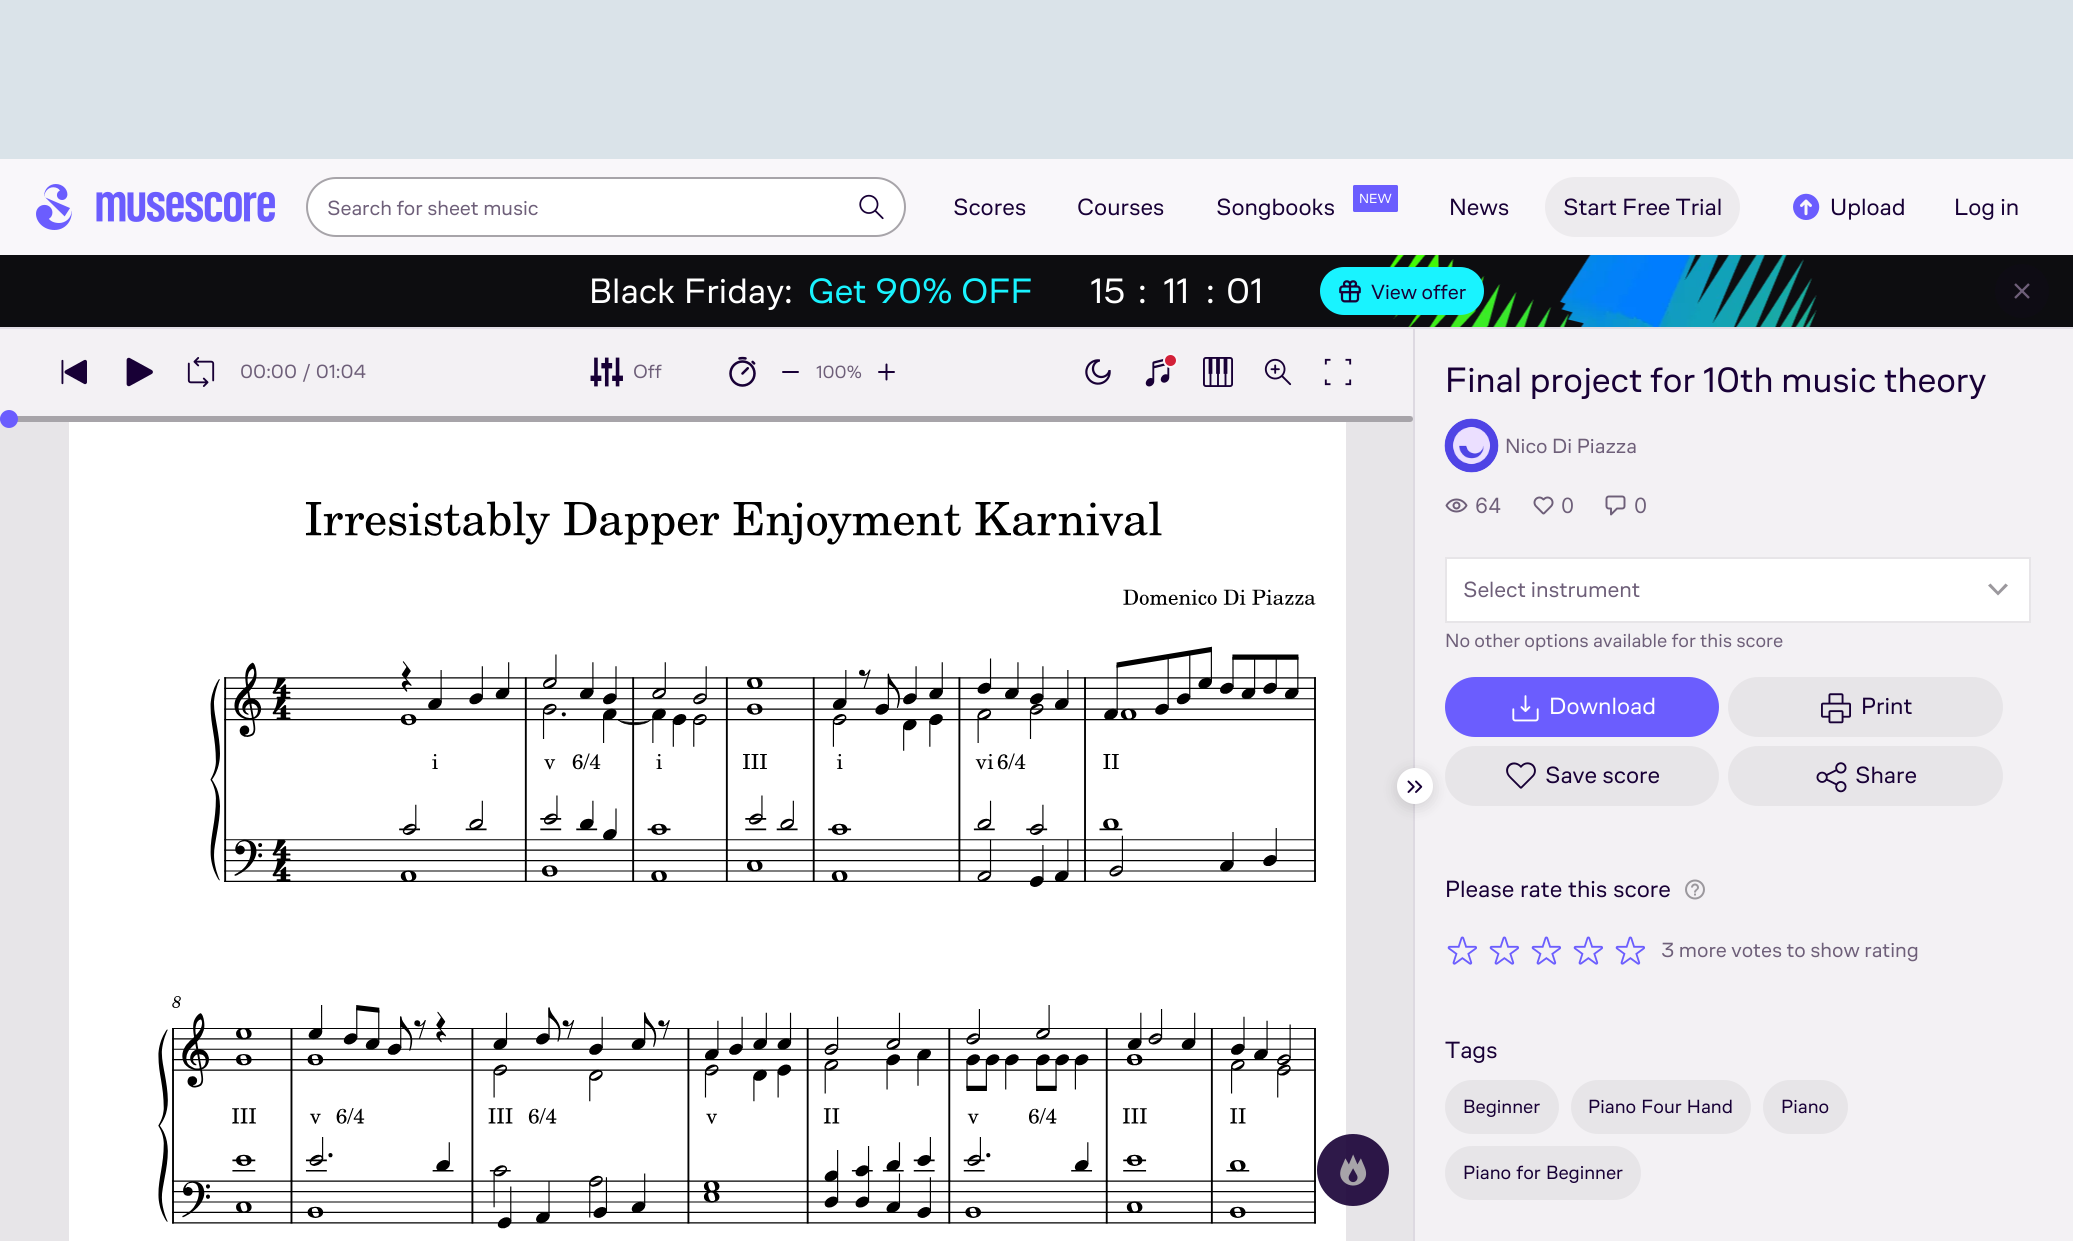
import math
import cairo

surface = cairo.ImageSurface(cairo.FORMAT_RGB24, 2073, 1241)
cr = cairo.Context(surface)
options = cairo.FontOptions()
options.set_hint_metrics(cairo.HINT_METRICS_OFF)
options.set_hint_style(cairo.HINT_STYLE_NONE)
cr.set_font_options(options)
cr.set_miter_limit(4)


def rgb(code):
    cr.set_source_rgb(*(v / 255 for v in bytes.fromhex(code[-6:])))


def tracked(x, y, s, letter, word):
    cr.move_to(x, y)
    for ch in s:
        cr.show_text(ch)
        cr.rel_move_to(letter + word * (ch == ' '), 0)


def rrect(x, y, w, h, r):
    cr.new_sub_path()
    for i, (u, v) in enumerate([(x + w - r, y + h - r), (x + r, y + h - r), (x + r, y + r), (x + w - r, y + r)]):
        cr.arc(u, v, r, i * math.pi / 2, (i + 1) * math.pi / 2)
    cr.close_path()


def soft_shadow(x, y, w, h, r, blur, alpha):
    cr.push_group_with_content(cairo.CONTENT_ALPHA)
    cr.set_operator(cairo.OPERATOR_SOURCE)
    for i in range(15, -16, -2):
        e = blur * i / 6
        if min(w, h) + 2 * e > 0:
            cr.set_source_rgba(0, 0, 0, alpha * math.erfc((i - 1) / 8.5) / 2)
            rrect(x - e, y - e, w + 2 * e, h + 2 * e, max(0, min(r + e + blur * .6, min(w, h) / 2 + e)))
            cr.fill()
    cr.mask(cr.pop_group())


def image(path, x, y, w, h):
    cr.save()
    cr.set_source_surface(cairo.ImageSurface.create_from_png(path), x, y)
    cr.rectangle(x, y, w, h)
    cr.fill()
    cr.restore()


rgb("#f9f7fa")
cr.paint()
rgb("#e2dee6")
cr.rectangle(0, 327, 2073, 2)
cr.fill()
rgb("#dae3e9")
cr.rectangle(0, 0, 2073, 159)
cr.fill()
image("img/1.png", 36, 184, 239, 46)
rgb("#ffffff")
rrect(307, 178, 598, 58, 29)
cr.fill_preserve()
rgb("#a7a4a9")
cr.stroke()
image("img/2.png", 859, 194, 25, 26)
rgb("#6b5dfe")
rrect(1353, 185, 45, 27, 1.5)
cr.fill()
rgb("#edebee")
rrect(1545, 177, 195, 60, 30)
cr.fill()
image("img/3.png", 1793, 193, 27, 27)
rgb("#0d0d10")
cr.rectangle(0, 255, 2073, 72)
cr.fill()
image("img/4.png", 1389, 255, 428, 72)
rgb("#19f3ff")
rrect(1320, 267, 164, 48, 24)
cr.fill()
image("img/5.png", 1339, 280, 22, 23)
rgb("#0e0c14")
cr.arc(2022, 291, 27, 0, 2 * math.pi)
cr.fill()
image("img/6.png", 2014, 283, 16, 16)
rgb("#e7e5e8")
cr.rectangle(0, 416, 1413, 825)
cr.fill()
rgb("#a7a4a9")
rrect(0, 416, 1413, 6, 3)
cr.fill()
rgb("#f3f1f4")
cr.rectangle(0, 329, 1413, 87)
cr.fill()
rgb("#6b5dfe")
cr.arc(9, 419, 9, 0, 2 * math.pi)
cr.fill()
image("img/7.png", 61, 359, 26, 26)
image("img/8.png", 126, 357, 27, 30)
image("img/9.png", 187, 357, 28, 30)
image("img/10.png", 590, 357, 33, 30)
image("img/11.png", 729, 356, 27, 31)
image("img/12.png", 782, 371, 17, 2)
image("img/13.png", 878, 363, 17, 18)
image("img/14.png", 1085, 359, 26, 26)
image("img/15.png", 1145, 358, 25, 29)
rgb("#d32139")
cr.arc(1170.5, 360.5, 6.5, 0, 2 * math.pi)
cr.fill_preserve()
rgb("#f9f7fa")
cr.stroke()
image("img/16.png", 1203, 357, 30, 30)
image("img/17.png", 1264, 358, 28, 28)
image("img/18.png", 1324, 358, 28, 28)
rgb("#ffffff")
cr.rectangle(69, 422, 1277, 819)
cr.fill()
image("img/19.png", 158, 501, 1158, 728)
cr.set_source_rgba(0.094, 0, 0.212, 0.9)
cr.arc(1353, 1170, 36, 0, 2 * math.pi)
cr.fill()
image("img/20.png", 1340, 1154, 27, 32)
rgb("#f3f1f4")
cr.rectangle(1415, 329, 658, 912)
cr.fill()
rgb("#ddd9e1")
cr.rectangle(1413, 329, 2, 912)
cr.fill()
rgb("#e7e5e8")
rrect(1445, 746, 274, 60, 30)
cr.fill()
rgb("#000000")
soft_shadow(1397, 771, 36, 36, 18, 7.5, 0.14)
rgb("#ffffff")
cr.arc(1415, 786, 18, 0, 2 * math.pi)
cr.fill()
image("img/21.png", 1407, 780, 16, 13)
image("img/22.png", 1444, 418, 55, 55)
image("img/23.png", 1445, 498, 23, 15)
image("img/24.png", 1533, 496, 21, 19)
image("img/25.png", 1605, 495, 21, 21)
cr.rectangle(1446, 558, 584, 64)
cr.fill_preserve()
rgb("#e7e5e8")
cr.stroke()
rgb("#9b989d")
cr.set_fill_rule(cairo.FILL_RULE_EVEN_ODD)
cr.new_path()
cr.move_to(2008, 585.5)
cr.line_to(1998, 595.5)
cr.line_to(1988, 585.5)
cr.line_to(1990.5, 583.5)
cr.line_to(1998, 591.5)
cr.line_to(2005.5, 583.5)
cr.close_path()
cr.fill()
rgb("#6b5dfe")
rrect(1445, 677, 274, 60, 30)
cr.fill()
image("img/26.png", 1512, 695, 27, 27)
rgb("#e7e5e8")
rrect(1728, 677, 275, 60, 30)
cr.fill()
image("img/27.png", 1821, 693, 30, 31)
image("img/28.png", 1506, 762, 30, 27)
rrect(1728, 746, 275, 60, 30)
cr.fill()
image("img/29.png", 1816, 762, 31, 31)
image("img/30.png", 1685, 879, 20, 21)
image("img/31.png", 1447, 936, 30, 29)
image("img/31.png", 1489, 936, 30, 29)
image("img/31.png", 1531, 936, 30, 29)
image("img/31.png", 1573, 936, 30, 29)
image("img/31.png", 1615, 936, 30, 29)
rrect(1445, 1080, 114, 54, 27)
cr.fill()
rrect(1571, 1080, 180, 54, 27)
cr.fill()
rrect(1763, 1080, 85, 54, 27)
cr.fill()
rrect(1445, 1146, 196, 54, 27)
cr.fill()
cr.select_font_face("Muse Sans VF")
cr.set_font_size(21)
rgb("#6e5f79")
cr.move_to(327, 215)
cr.show_text("Search for sheet music")
cr.set_font_size(24)
rgb("#180036")
for x, y, s in [
    (953, 215, "Scores"),
    (1077, 215, "Courses"),
    (1216, 215, "Songbooks"),
]:
    cr.move_to(x, y)
    cr.show_text(s)
cr.set_font_size(13.5)
rgb("#ffffff")
cr.move_to(1359, 203)
cr.show_text("NEW")
cr.set_font_size(24)
rgb("#180036")
for x, y, s in [
    (1449, 215, "News"),
    (1563, 215, "Start Free Trial"),
    (1830, 215, "Upload"),
    (1954, 215, "Log in"),
]:
    cr.move_to(x, y)
    cr.show_text(s)
cr.set_font_size(36)
rgb("#ffffff")
cr.move_to(589, 303)
cr.show_text("Black")
cr.move_to(684, 303)
cr.show_text("Friday:")
rgb("#19f3ff")
for x, y, s in [
    (808, 303, "Get"),
    (875, 303, "90%"),
    (961, 303, "OFF"),
]:
    cr.move_to(x, y)
    cr.show_text(s)
rgb("#ffffff")
for x, y, s in [
    (1090, 303, "15"),
    (1138, 303, ":"),
    (1163, 303, "11"),
    (1206, 303, ":"),
    (1226, 303, "01"),
]:
    cr.move_to(x, y)
    cr.show_text(s)
cr.set_font_size(21)
rgb("#180036")
cr.move_to(1371, 299)
cr.show_text("View offer")
cr.set_font_size(19.5)
rgb("#6e5f79")
cr.move_to(240, 378)
cr.show_text("00:00 / 01:04")
cr.move_to(633, 378)
cr.show_text("Off")
cr.set_font_size(18)
cr.move_to(816, 378)
cr.show_text("100%")
cr.set_font_size(36)
rgb("#180036")
cr.move_to(1445, 392)
cr.show_text("Final project for 10th music theory")
cr.set_font_size(21)
rgb("#6e5f79")
cr.move_to(1505, 453)
cr.show_text("Nico Di Piazza")
cr.select_font_face("Inter")
for x, y, s in [
    (1475, 513, "64"),
    (1561, 513, "0"),
    (1634, 513, "0"),
]:
    cr.move_to(x, y)
    cr.show_text(s)
cr.select_font_face("Muse Sans VF")
cr.set_font_size(22.5)
cr.move_to(1463, 597)
cr.show_text("Select instrument")
cr.set_font_size(19.5)
cr.move_to(1445, 647)
cr.show_text("No other options available for this score")
cr.set_font_size(24)
rgb("#ffffff")
cr.move_to(1549, 714)
cr.show_text("Download")
rgb("#180036")
for x, y, s in [
    (1861, 714, "Print"),
    (1545, 783, "Save score"),
    (1855, 783, "Share"),
    (1445, 897, "Please"),
    (1520, 897, "rate"),
    (1568, 897, "this"),
    (1613, 897, "score"),
]:
    cr.move_to(x, y)
    cr.show_text(s)
cr.set_font_size(21)
rgb("#6e5f79")
cr.move_to(1661, 957)
cr.show_text("3 more votes to show rating")
cr.set_font_size(24)
rgb("#180036")
cr.move_to(1445, 1058)
cr.show_text("Tags")
cr.set_font_size(19.5)
cr.move_to(1463, 1113)
cr.show_text("Beginner")
tracked(1588, 1113, "Piano Four Hand", 0, 1)
cr.move_to(1781, 1113)
cr.show_text("Piano")
tracked(1463, 1179, "Piano for Beginner", 0, 1)
surface.write_to_png("page.png")
